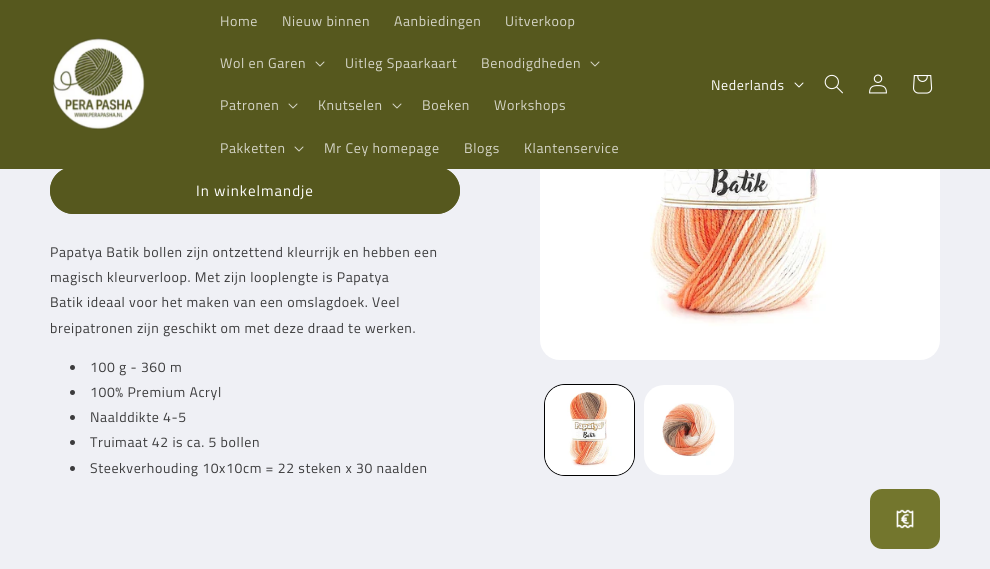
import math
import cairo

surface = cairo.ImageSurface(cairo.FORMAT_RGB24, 990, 569)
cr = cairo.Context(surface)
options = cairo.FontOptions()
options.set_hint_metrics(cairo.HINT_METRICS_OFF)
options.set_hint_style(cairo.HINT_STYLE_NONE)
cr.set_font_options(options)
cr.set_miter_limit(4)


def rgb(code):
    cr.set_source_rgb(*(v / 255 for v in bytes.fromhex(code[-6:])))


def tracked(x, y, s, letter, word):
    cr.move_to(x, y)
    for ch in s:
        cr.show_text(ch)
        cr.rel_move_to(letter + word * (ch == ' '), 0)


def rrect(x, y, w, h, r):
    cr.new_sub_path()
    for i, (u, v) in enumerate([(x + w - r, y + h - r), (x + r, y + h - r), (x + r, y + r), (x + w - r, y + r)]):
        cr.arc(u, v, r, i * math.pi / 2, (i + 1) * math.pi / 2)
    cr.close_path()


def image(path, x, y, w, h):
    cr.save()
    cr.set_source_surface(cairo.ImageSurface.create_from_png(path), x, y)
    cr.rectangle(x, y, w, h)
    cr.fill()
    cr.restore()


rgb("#eff0f5")
cr.paint()
rgb("#56581e")
rrect(50, 167, 410, 47, 23.5)
cr.fill()
rrect(50.5, 167.5, 409, 46, 23)
cr.set_line_width(1)
cr.stroke()
cr.rectangle(0, 0, 990, 169)
cr.fill()
image("img/1.png", 53, 38, 92, 92)
image("img/2.png", 315, 61, 10, 6)
image("img/2.png", 590, 61, 10, 6)
image("img/2.png", 288, 103, 10, 6)
image("img/2.png", 392, 103, 10, 6)
image("img/2.png", 294, 146, 10, 6)
image("img/3.png", 794, 82, 10, 6)
image("img/4.png", 824, 74, 19, 20)
image("img/5.png", 869, 74, 18, 20)
image("img/6.png", 913, 75, 20, 19)
rgb("#3c3c3d")
cr.arc(72.5, 367.5, 2.5, 0, 2 * math.pi)
cr.fill()
cr.arc(72.5, 392.5, 2.5, 0, 2 * math.pi)
cr.fill()
cr.arc(72.5, 417.5, 2.5, 0, 2 * math.pi)
cr.fill()
cr.arc(72.5, 442.5, 2.5, 0, 2 * math.pi)
cr.fill()
cr.arc(72.5, 468.5, 2.5, 0, 2 * math.pi)
cr.fill()
image("img/7.png", 540, 169, 400, 191)
rrect(544.5, 384.5, 90, 91, 20.5)
rgb("#000000")
cr.stroke()
image("img/8.png", 545, 385, 89, 90)
image("img/9.png", 644, 385, 90, 90)
rgb("#73762d")
rrect(870, 489, 70, 60, 12)
cr.fill()
image("img/10.png", 896, 509, 18, 20)
cr.select_font_face("Titillium Web")
cr.set_font_size(14)
rgb("#d5d5c7")
for x, y, s in [
    (220, 26, "Home"),
    (282, 26, "Nieuw binnen"),
    (394, 26, "Aanbiedingen"),
    (505, 26, "Uitverkoop"),
    (220, 68, "Wol en Garen"),
    (345, 68, "Uitleg Spaarkaart"),
    (481, 68, "Benodigdheden"),
    (220, 110, "Patronen"),
    (318, 110, "Knutselen"),
    (422, 110, "Boeken"),
    (494, 110, "Workshops"),
    (220, 153, "Pakketten"),
    (324, 153, "Mr Cey homepage"),
    (464, 153, "Blogs"),
    (524, 153, "Klantenservice"),
]:
    tracked(x, y, s, 0.6, 0)
rgb("#ffffff")
tracked(711, 90, "Nederlands", 0.6, 0)
cr.set_font_size(15)
tracked(196, 196, "In winkelmandje", 1, 0)
cr.set_font_size(14)
rgb("#3c3c3d")
for x, y, s in [
    (50, 257, "Papatya Batik bollen zijn ontzettend kleurrijk en hebben een"),
    (50, 282, "magisch kleurverloop. Met zijn looplengte is Papatya"),
    (50, 307, "Batik ideaal voor het maken van een omslagdoek. Veel"),
    (50, 333, "breipatronen zijn geschikt om met deze draad te werken."),
    (90, 372, "100 g - 360 m"),
    (90, 397, "100% Premium Acryl"),
    (90, 422, "Naalddikte 4-5"),
    (90, 447, "Truimaat 42 is ca. 5 bollen"),
    (90, 473, "Steekverhouding 10x10cm = 22 steken x 30 naalden"),
]:
    tracked(x, y, s, 0.6, 0)
surface.write_to_png("page.png")
